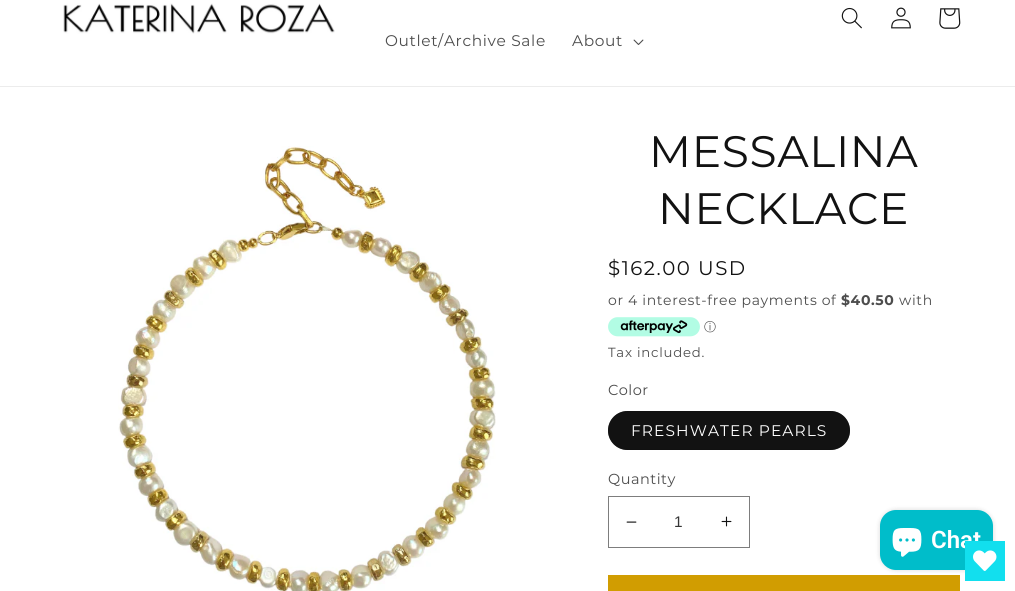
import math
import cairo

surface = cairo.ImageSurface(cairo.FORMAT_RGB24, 1015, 591)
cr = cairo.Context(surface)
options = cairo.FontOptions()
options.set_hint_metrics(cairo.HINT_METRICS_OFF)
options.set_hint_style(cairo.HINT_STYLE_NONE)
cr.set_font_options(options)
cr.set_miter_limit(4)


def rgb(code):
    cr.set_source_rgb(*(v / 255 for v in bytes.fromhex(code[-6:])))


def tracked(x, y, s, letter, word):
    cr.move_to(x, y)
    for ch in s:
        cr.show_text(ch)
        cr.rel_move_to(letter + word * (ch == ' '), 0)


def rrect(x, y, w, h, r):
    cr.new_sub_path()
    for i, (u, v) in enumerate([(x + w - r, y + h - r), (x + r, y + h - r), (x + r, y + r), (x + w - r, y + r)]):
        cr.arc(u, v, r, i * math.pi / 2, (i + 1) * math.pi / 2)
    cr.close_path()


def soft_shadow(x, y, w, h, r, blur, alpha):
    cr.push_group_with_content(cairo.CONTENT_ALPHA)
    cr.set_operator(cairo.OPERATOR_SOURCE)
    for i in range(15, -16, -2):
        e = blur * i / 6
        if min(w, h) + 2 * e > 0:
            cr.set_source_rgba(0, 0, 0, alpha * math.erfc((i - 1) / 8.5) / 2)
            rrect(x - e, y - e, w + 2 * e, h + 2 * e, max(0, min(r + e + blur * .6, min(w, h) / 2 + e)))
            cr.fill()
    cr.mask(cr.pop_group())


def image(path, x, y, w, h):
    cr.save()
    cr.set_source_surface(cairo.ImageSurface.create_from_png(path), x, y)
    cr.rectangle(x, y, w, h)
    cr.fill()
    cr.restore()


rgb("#ffffff")
cr.paint()
rgb("#ececec")
cr.rectangle(0, 86, 1015, 1)
cr.fill()
image("img/1.png", 63, 3, 272, 31)
image("img/2.png", 841, 7, 21, 22)
image("img/3.png", 891, 7, 20, 22)
image("img/4.png", 939, 8, 22, 21)
image("img/5.png", 633, 39, 11, 6)
image("img/6.png", 118, 146, 378, 445)
image("img/7.png", 608, 317, 92, 20)
rgb("#121212")
rrect(608, 411, 242, 39, 19.5)
cr.fill()
rrect(608.5, 411.5, 241, 38, 19)
cr.set_source_rgba(0.071, 0.071, 0.071, 0.55)
cr.set_line_width(1)
cr.stroke()
image("img/8.png", 626, 521, 11, 2)
image("img/9.png", 721, 516, 11, 11)
cr.rectangle(608.5, 496.5, 141, 51)
rgb("#7d7d7d")
cr.stroke()
rgb("#d19d01")
cr.rectangle(608, 575, 352, 16)
cr.fill()
rgb("#000000")
soft_shadow(880, 510, 113, 60, 16, 2.5, 0.15)
rgb("#00bdca")
rrect(880, 510, 113, 60, 16)
cr.fill()
image("img/10.png", 892, 528, 30, 29)
cr.select_font_face("Montserrat")
cr.set_font_size(15.4)
rgb("#4d4d4d")
tracked(385, 46, "Outlet/Archive Sale", 0.65, 0)
tracked(572, 46, "About", 0.65, 0)
cr.set_font_size(44)
rgb("#121212")
tracked(649, 167, "MESSALINA", 0.65, 0)
tracked(658, 224, "NECKLACE", 0.65, 0)
cr.set_font_size(19.75)
tracked(608, 275, "$162.00 USD", 1.5, 0)
cr.set_font_size(14)
rgb("#4d4d4d")
tracked(608, 305, "or 4 interest-free payments of", 0.65, 0)
cr.select_font_face("Montserrat", cairo.FONT_SLANT_NORMAL, cairo.FONT_WEIGHT_BOLD)
tracked(841, 305, "$40.50", 0.65, 0)
cr.select_font_face("Montserrat")
tracked(899, 305, "with", 0.65, 0)
cr.select_font_face("WenQuanYi Zen Hei Medium")
cr.set_font_size(12)
cr.move_to(704, 331)
cr.show_text("ⓘ")
cr.select_font_face("Montserrat")
cr.set_font_size(13.25)
tracked(608, 357, "Tax included.", 0.75, 0)
cr.set_font_size(14.5)
tracked(608, 395, "Color", 0.5, 0)
cr.set_font_size(15.4)
rgb("#ffffff")
tracked(631, 436, "FRESHWATER PEARLS", 1.1, 0)
cr.set_font_size(14.5)
rgb("#4d4d4d")
tracked(608, 484, "Quantity", 0.5, 0)
cr.select_font_face("Liberation Sans")
cr.set_font_size(15.4)
rgb("#363636")
cr.move_to(674, 527)
cr.show_text("1")
cr.select_font_face("Roboto SemiBold")
cr.set_font_size(24)
rgb("#ffffff")
cr.move_to(931, 548)
cr.show_text("Chat")
rgb("#12dfee")
cr.rectangle(965, 541, 40, 40)
cr.fill()
image("img/11.png", 973, 550, 24, 21)
surface.write_to_png("page.png")
